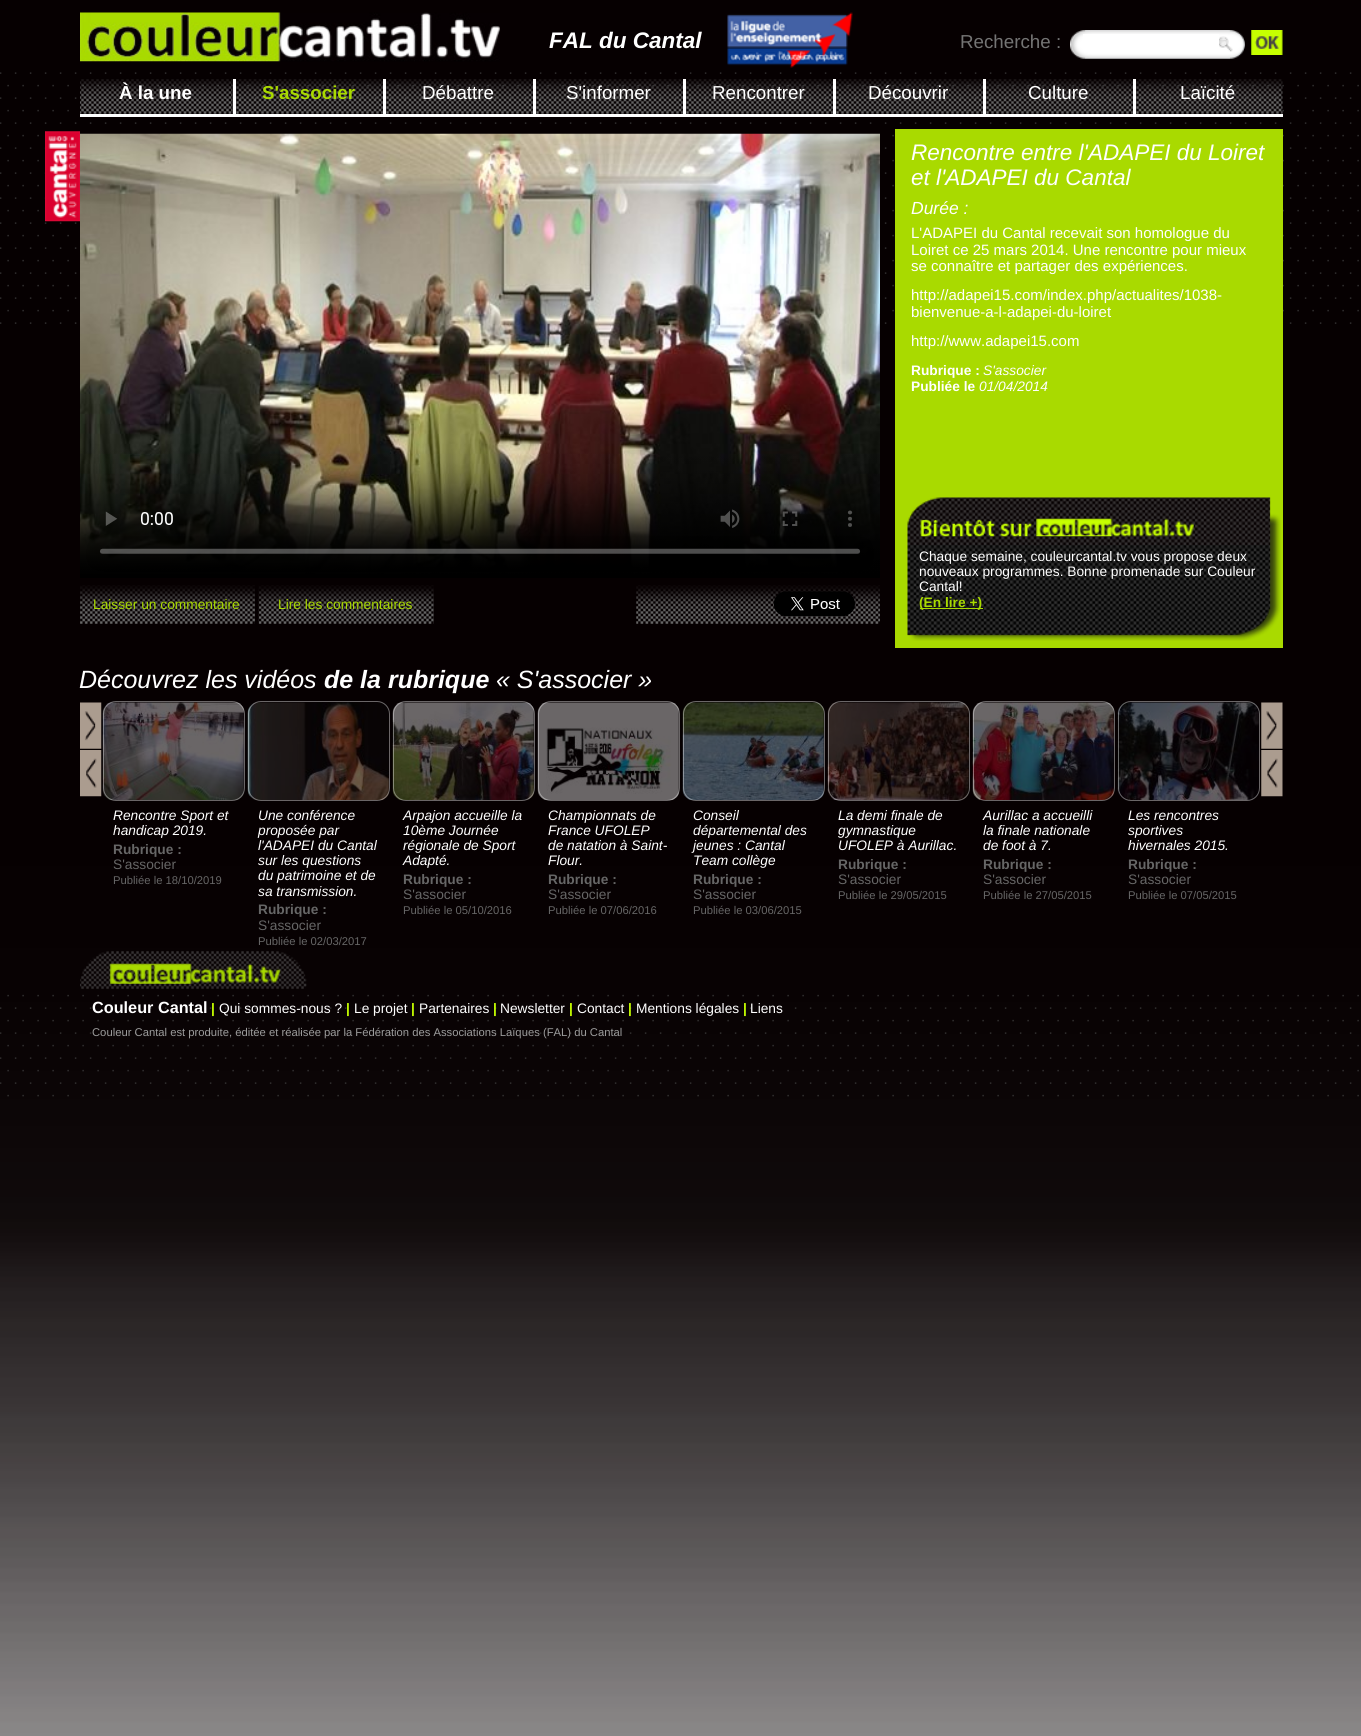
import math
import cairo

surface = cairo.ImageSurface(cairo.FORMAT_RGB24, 1361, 1736)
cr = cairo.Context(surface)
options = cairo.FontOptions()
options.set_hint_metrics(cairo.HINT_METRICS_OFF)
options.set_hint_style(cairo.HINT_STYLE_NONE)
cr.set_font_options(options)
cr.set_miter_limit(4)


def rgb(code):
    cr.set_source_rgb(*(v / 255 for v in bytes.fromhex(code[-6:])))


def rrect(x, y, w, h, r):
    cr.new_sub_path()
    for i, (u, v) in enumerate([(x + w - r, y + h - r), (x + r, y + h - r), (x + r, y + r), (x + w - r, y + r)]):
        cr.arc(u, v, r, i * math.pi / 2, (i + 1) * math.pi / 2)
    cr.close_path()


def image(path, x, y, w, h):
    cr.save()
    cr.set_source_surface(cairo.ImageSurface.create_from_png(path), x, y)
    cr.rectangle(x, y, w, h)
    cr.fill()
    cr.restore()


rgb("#ffffff")
cr.paint()
image("img/1.png", 0, 0, 1361, 1736)
image("img/2.png", 0, 72, 1359, 1025)
image("img/3.png", 80, 12, 420, 50)
image("img/4.png", 727, 12, 126, 56)
image("img/5.png", 1070, 30, 175, 29)
rgb("#ffffff")
cr.rectangle(1083, 34, 136, 13)
cr.fill()
image("img/6.png", 1251, 30, 32, 25)
image("img/7.png", 80, 79, 153, 35)
cr.rectangle(80, 114, 1203, 3)
cr.fill()
image("img/8.png", 232, 79, 151, 35)
cr.rectangle(233, 79, 3, 37)
cr.fill()
image("img/9.png", 382, 79, 151, 35)
cr.rectangle(383, 79, 3, 37)
cr.fill()
image("img/10.png", 532, 79, 151, 35)
cr.rectangle(533, 79, 3, 37)
cr.fill()
image("img/11.png", 682, 79, 151, 35)
cr.rectangle(683, 79, 3, 37)
cr.fill()
image("img/12.png", 832, 79, 151, 35)
cr.rectangle(833, 79, 3, 37)
cr.fill()
image("img/13.png", 982, 79, 151, 35)
cr.rectangle(983, 79, 3, 37)
cr.fill()
image("img/14.png", 1132, 79, 151, 35)
cr.rectangle(1133, 79, 3, 37)
cr.fill()
image("img/15.png", 45, 131, 35, 91)
image("img/16.png", 80, 133, 800, 445)
image("img/17.png", 80, 585, 175, 39)
image("img/18.png", 258, 585, 176, 39)
image("img/19.png", 636, 585, 244, 39)
image("img/20.png", 774, 591, 81, 26)
rgb("#a9da00")
cr.rectangle(895, 129, 388, 519)
cr.fill()
image("img/21.png", 907, 497, 374, 144)
image("img/22.png", 920, 518, 274, 19)
cr.rectangle(920, 608, 63, 1)
cr.fill()
image("img/23.png", 80, 702, 22, 47)
image("img/24.png", 80, 750, 22, 47)
image("img/25.png", 1261, 702, 22, 47)
image("img/26.png", 1261, 750, 22, 47)
image("img/27.png", 102, 702, 142, 98)
rrect(103.5, 701.5, 141, 99, 12.5)
cr.set_source_rgba(1, 1, 1, 0.4)
cr.set_line_width(1)
cr.stroke()
image("img/28.png", 247, 702, 142, 98)
rrect(248.5, 701.5, 141, 99, 12.5)
cr.stroke()
image("img/29.png", 392, 702, 142, 98)
rrect(393.5, 701.5, 141, 99, 12.5)
cr.stroke()
image("img/30.png", 537, 702, 142, 98)
rrect(538.5, 701.5, 141, 99, 12.5)
cr.stroke()
image("img/31.png", 682, 702, 142, 98)
rrect(683.5, 701.5, 141, 99, 12.5)
cr.stroke()
image("img/32.png", 827, 702, 142, 98)
rrect(828.5, 701.5, 141, 99, 12.5)
cr.stroke()
image("img/33.png", 972, 702, 142, 98)
rrect(973.5, 701.5, 141, 99, 12.5)
cr.stroke()
image("img/34.png", 1117, 702, 142, 98)
rrect(1118.5, 701.5, 141, 99, 12.5)
cr.stroke()
image("img/35.png", 80, 951, 227, 38)
cr.select_font_face("Liberation Sans", cairo.FONT_SLANT_ITALIC, cairo.FONT_WEIGHT_BOLD)
cr.set_font_size(22.5)
rgb("#ffffff")
cr.move_to(549, 48)
cr.show_text("FAL du Cantal")
cr.select_font_face("Liberation Sans")
cr.set_font_size(18.75)
rgb("#747474")
cr.move_to(960, 48)
cr.show_text("Recherche :")
cr.select_font_face("Liberation Sans", cairo.FONT_SLANT_NORMAL, cairo.FONT_WEIGHT_BOLD)
rgb("#ffffff")
cr.move_to(119, 99)
cr.show_text("À la une")
rgb("#a9da00")
cr.move_to(262, 99)
cr.show_text("S'associer")
cr.select_font_face("Liberation Sans")
rgb("#ffffff")
for x, y, s in [
    (422, 99, "Débattre"),
    (566, 99, "S'informer"),
    (712, 99, "Rencontrer"),
    (868, 99, "Découvrir"),
    (1028, 99, "Culture"),
    (1180, 99, "Laïcité"),
]:
    cr.move_to(x, y)
    cr.show_text(s)
cr.set_font_size(13.75)
rgb("#a9da00")
cr.move_to(93, 609)
cr.show_text("Laisser un commentaire")
cr.move_to(278, 609)
cr.show_text("Lire les commentaires")
cr.select_font_face("Liberation Sans", cairo.FONT_SLANT_ITALIC)
cr.set_font_size(22.5)
rgb("#ffffff")
cr.move_to(911, 160)
cr.show_text("Rencontre entre l'ADAPEI du Loiret")
cr.move_to(911, 185)
cr.show_text("et l'ADAPEI du Cantal")
cr.set_font_size(17.5)
cr.move_to(911, 214)
cr.show_text("Durée :")
cr.select_font_face("Liberation Sans")
cr.set_font_size(15)
for x, y, s in [
    (911, 238, "L'ADAPEI du Cantal recevait son homologue du"),
    (911, 255, "Loiret ce 25 mars 2014. Une rencontre pour mieux"),
    (911, 271, "se connaître et partager des expériences."),
    (911, 300, "http://adapei15.com/index.php/actualites/1038-"),
    (911, 317, "bienvenue-a-l-adapei-du-loiret"),
    (911, 346, "http://www.adapei15.com"),
]:
    cr.move_to(x, y)
    cr.show_text(s)
cr.select_font_face("Liberation Sans", cairo.FONT_SLANT_NORMAL, cairo.FONT_WEIGHT_BOLD)
cr.set_font_size(13.75)
cr.move_to(911, 375)
cr.show_text("Rubrique :")
cr.select_font_face("Liberation Sans", cairo.FONT_SLANT_ITALIC)
cr.move_to(983, 375)
cr.show_text("S'associer")
cr.select_font_face("Liberation Sans", cairo.FONT_SLANT_NORMAL, cairo.FONT_WEIGHT_BOLD)
cr.move_to(911, 391)
cr.show_text("Publiée le")
cr.select_font_face("Liberation Sans", cairo.FONT_SLANT_ITALIC)
cr.move_to(979, 391)
cr.show_text("01/04/2014")
cr.select_font_face("Liberation Sans")
for x, y, s in [
    (919, 561, "Chaque semaine, couleurcantal.tv vous propose deux"),
    (919, 576, "nouveaux programmes. Bonne promenade sur Couleur"),
    (919, 591, "Cantal!"),
]:
    cr.move_to(x, y)
    cr.show_text(s)
cr.select_font_face("Liberation Sans", cairo.FONT_SLANT_NORMAL, cairo.FONT_WEIGHT_BOLD)
rgb("#a9da00")
cr.move_to(919, 607)
cr.show_text("(En lire +)")
cr.select_font_face("Liberation Sans", cairo.FONT_SLANT_ITALIC)
cr.set_font_size(25)
rgb("#ffffff")
cr.move_to(79, 688)
cr.show_text("Découvrez les vidéos")
cr.select_font_face("Liberation Sans", cairo.FONT_SLANT_ITALIC, cairo.FONT_WEIGHT_BOLD)
cr.move_to(324, 688)
cr.show_text("de la rubrique")
cr.select_font_face("Liberation Sans", cairo.FONT_SLANT_ITALIC)
cr.move_to(496, 688)
cr.show_text("« S'associer »")
cr.set_font_size(13.75)
cr.move_to(113, 820)
cr.show_text("Rencontre Sport et")
cr.move_to(113, 835)
cr.show_text("handicap 2019.")
cr.select_font_face("Liberation Sans", cairo.FONT_SLANT_NORMAL, cairo.FONT_WEIGHT_BOLD)
rgb("#666666")
cr.move_to(113, 854)
cr.show_text("Rubrique :")
cr.select_font_face("Liberation Sans")
cr.move_to(113, 869)
cr.show_text("S'associer")
cr.set_font_size(11.25)
cr.move_to(113, 884)
cr.show_text("Publiée le 18/10/2019")
cr.select_font_face("Liberation Sans", cairo.FONT_SLANT_ITALIC)
cr.set_font_size(13.75)
rgb("#ffffff")
for x, y, s in [
    (258, 820, "Une conférence"),
    (258, 835, "proposée par"),
    (258, 850, "l'ADAPEI du Cantal"),
    (258, 865, "sur les questions"),
    (258, 880, "du patrimoine et de"),
    (258, 896, "sa transmission."),
]:
    cr.move_to(x, y)
    cr.show_text(s)
cr.select_font_face("Liberation Sans", cairo.FONT_SLANT_NORMAL, cairo.FONT_WEIGHT_BOLD)
rgb("#666666")
cr.move_to(258, 914)
cr.show_text("Rubrique :")
cr.select_font_face("Liberation Sans")
cr.move_to(258, 930)
cr.show_text("S'associer")
cr.set_font_size(11.25)
cr.move_to(258, 945)
cr.show_text("Publiée le 02/03/2017")
cr.select_font_face("Liberation Sans", cairo.FONT_SLANT_ITALIC)
cr.set_font_size(13.75)
rgb("#ffffff")
for x, y, s in [
    (403, 820, "Arpajon accueille la"),
    (403, 835, "10ème Journée"),
    (403, 850, "régionale de Sport"),
    (403, 865, "Adapté."),
]:
    cr.move_to(x, y)
    cr.show_text(s)
cr.select_font_face("Liberation Sans", cairo.FONT_SLANT_NORMAL, cairo.FONT_WEIGHT_BOLD)
rgb("#666666")
cr.move_to(403, 884)
cr.show_text("Rubrique :")
cr.select_font_face("Liberation Sans")
cr.move_to(403, 899)
cr.show_text("S'associer")
cr.set_font_size(11.25)
cr.move_to(403, 914)
cr.show_text("Publiée le 05/10/2016")
cr.select_font_face("Liberation Sans", cairo.FONT_SLANT_ITALIC)
cr.set_font_size(13.75)
rgb("#ffffff")
for x, y, s in [
    (548, 820, "Championnats de"),
    (548, 835, "France UFOLEP"),
    (548, 850, "de natation à Saint-"),
    (548, 865, "Flour."),
]:
    cr.move_to(x, y)
    cr.show_text(s)
cr.select_font_face("Liberation Sans", cairo.FONT_SLANT_NORMAL, cairo.FONT_WEIGHT_BOLD)
rgb("#666666")
cr.move_to(548, 884)
cr.show_text("Rubrique :")
cr.select_font_face("Liberation Sans")
cr.move_to(548, 899)
cr.show_text("S'associer")
cr.set_font_size(11.25)
cr.move_to(548, 914)
cr.show_text("Publiée le 07/06/2016")
cr.select_font_face("Liberation Sans", cairo.FONT_SLANT_ITALIC)
cr.set_font_size(13.75)
rgb("#ffffff")
for x, y, s in [
    (693, 820, "Conseil"),
    (693, 835, "départemental des"),
    (693, 850, "jeunes : Cantal"),
    (693, 865, "Team collège"),
]:
    cr.move_to(x, y)
    cr.show_text(s)
cr.select_font_face("Liberation Sans", cairo.FONT_SLANT_NORMAL, cairo.FONT_WEIGHT_BOLD)
rgb("#666666")
cr.move_to(693, 884)
cr.show_text("Rubrique :")
cr.select_font_face("Liberation Sans")
cr.move_to(693, 899)
cr.show_text("S'associer")
cr.set_font_size(11.25)
cr.move_to(693, 914)
cr.show_text("Publiée le 03/06/2015")
cr.select_font_face("Liberation Sans", cairo.FONT_SLANT_ITALIC)
cr.set_font_size(13.75)
rgb("#ffffff")
for x, y, s in [
    (838, 820, "La demi finale de"),
    (838, 835, "gymnastique"),
    (838, 850, "UFOLEP à Aurillac."),
]:
    cr.move_to(x, y)
    cr.show_text(s)
cr.select_font_face("Liberation Sans", cairo.FONT_SLANT_NORMAL, cairo.FONT_WEIGHT_BOLD)
rgb("#666666")
cr.move_to(838, 869)
cr.show_text("Rubrique :")
cr.select_font_face("Liberation Sans")
cr.move_to(838, 884)
cr.show_text("S'associer")
cr.set_font_size(11.25)
cr.move_to(838, 899)
cr.show_text("Publiée le 29/05/2015")
cr.select_font_face("Liberation Sans", cairo.FONT_SLANT_ITALIC)
cr.set_font_size(13.75)
rgb("#ffffff")
for x, y, s in [
    (983, 820, "Aurillac a accueilli"),
    (983, 835, "la finale nationale"),
    (983, 850, "de foot à 7."),
]:
    cr.move_to(x, y)
    cr.show_text(s)
cr.select_font_face("Liberation Sans", cairo.FONT_SLANT_NORMAL, cairo.FONT_WEIGHT_BOLD)
rgb("#666666")
cr.move_to(983, 869)
cr.show_text("Rubrique :")
cr.select_font_face("Liberation Sans")
cr.move_to(983, 884)
cr.show_text("S'associer")
cr.set_font_size(11.25)
cr.move_to(983, 899)
cr.show_text("Publiée le 27/05/2015")
cr.select_font_face("Liberation Sans", cairo.FONT_SLANT_ITALIC)
cr.set_font_size(13.75)
rgb("#ffffff")
for x, y, s in [
    (1128, 820, "Les rencontres"),
    (1128, 835, "sportives"),
    (1128, 850, "hivernales 2015."),
]:
    cr.move_to(x, y)
    cr.show_text(s)
cr.select_font_face("Liberation Sans", cairo.FONT_SLANT_NORMAL, cairo.FONT_WEIGHT_BOLD)
rgb("#666666")
cr.move_to(1128, 869)
cr.show_text("Rubrique :")
cr.select_font_face("Liberation Sans")
cr.move_to(1128, 884)
cr.show_text("S'associer")
cr.set_font_size(11.25)
cr.move_to(1128, 899)
cr.show_text("Publiée le 07/05/2015")
cr.select_font_face("Liberation Sans", cairo.FONT_SLANT_NORMAL, cairo.FONT_WEIGHT_BOLD)
cr.set_font_size(16.25)
rgb("#ffffff")
cr.move_to(92, 1013)
cr.show_text("Couleur Cantal")
cr.set_font_size(13.75)
rgb("#c6ff00")
cr.move_to(211, 1013)
cr.show_text("|")
cr.select_font_face("Liberation Sans")
rgb("#ffffff")
cr.move_to(219, 1013)
cr.show_text("Qui sommes-nous ?")
cr.select_font_face("Liberation Sans", cairo.FONT_SLANT_NORMAL, cairo.FONT_WEIGHT_BOLD)
rgb("#c6ff00")
cr.move_to(346, 1013)
cr.show_text("|")
cr.select_font_face("Liberation Sans")
rgb("#ffffff")
cr.move_to(354, 1013)
cr.show_text("Le projet")
cr.select_font_face("Liberation Sans", cairo.FONT_SLANT_NORMAL, cairo.FONT_WEIGHT_BOLD)
rgb("#c6ff00")
cr.move_to(411, 1013)
cr.show_text("|")
cr.select_font_face("Liberation Sans")
rgb("#ffffff")
cr.move_to(419, 1013)
cr.show_text("Partenaires")
cr.select_font_face("Liberation Sans", cairo.FONT_SLANT_NORMAL, cairo.FONT_WEIGHT_BOLD)
rgb("#c6ff00")
cr.move_to(493, 1013)
cr.show_text("|")
cr.select_font_face("Liberation Sans")
rgb("#ffffff")
cr.move_to(500, 1013)
cr.show_text("Newsletter")
cr.select_font_face("Liberation Sans", cairo.FONT_SLANT_NORMAL, cairo.FONT_WEIGHT_BOLD)
rgb("#c6ff00")
cr.move_to(569, 1013)
cr.show_text("|")
cr.select_font_face("Liberation Sans")
rgb("#ffffff")
cr.move_to(577, 1013)
cr.show_text("Contact")
cr.select_font_face("Liberation Sans", cairo.FONT_SLANT_NORMAL, cairo.FONT_WEIGHT_BOLD)
rgb("#c6ff00")
cr.move_to(628, 1013)
cr.show_text("|")
cr.select_font_face("Liberation Sans")
rgb("#ffffff")
cr.move_to(636, 1013)
cr.show_text("Mentions légales")
cr.select_font_face("Liberation Sans", cairo.FONT_SLANT_NORMAL, cairo.FONT_WEIGHT_BOLD)
rgb("#c6ff00")
cr.move_to(743, 1013)
cr.show_text("|")
cr.select_font_face("Liberation Sans")
rgb("#ffffff")
cr.move_to(750, 1013)
cr.show_text("Liens")
cr.set_font_size(11.25)
rgb("#9c9c9c")
cr.move_to(92, 1036)
cr.show_text("Couleur Cantal est produite, éditée et réalisée par la Fédération des Associations Laïques (FAL) du Cantal")
surface.write_to_png("page.png")
